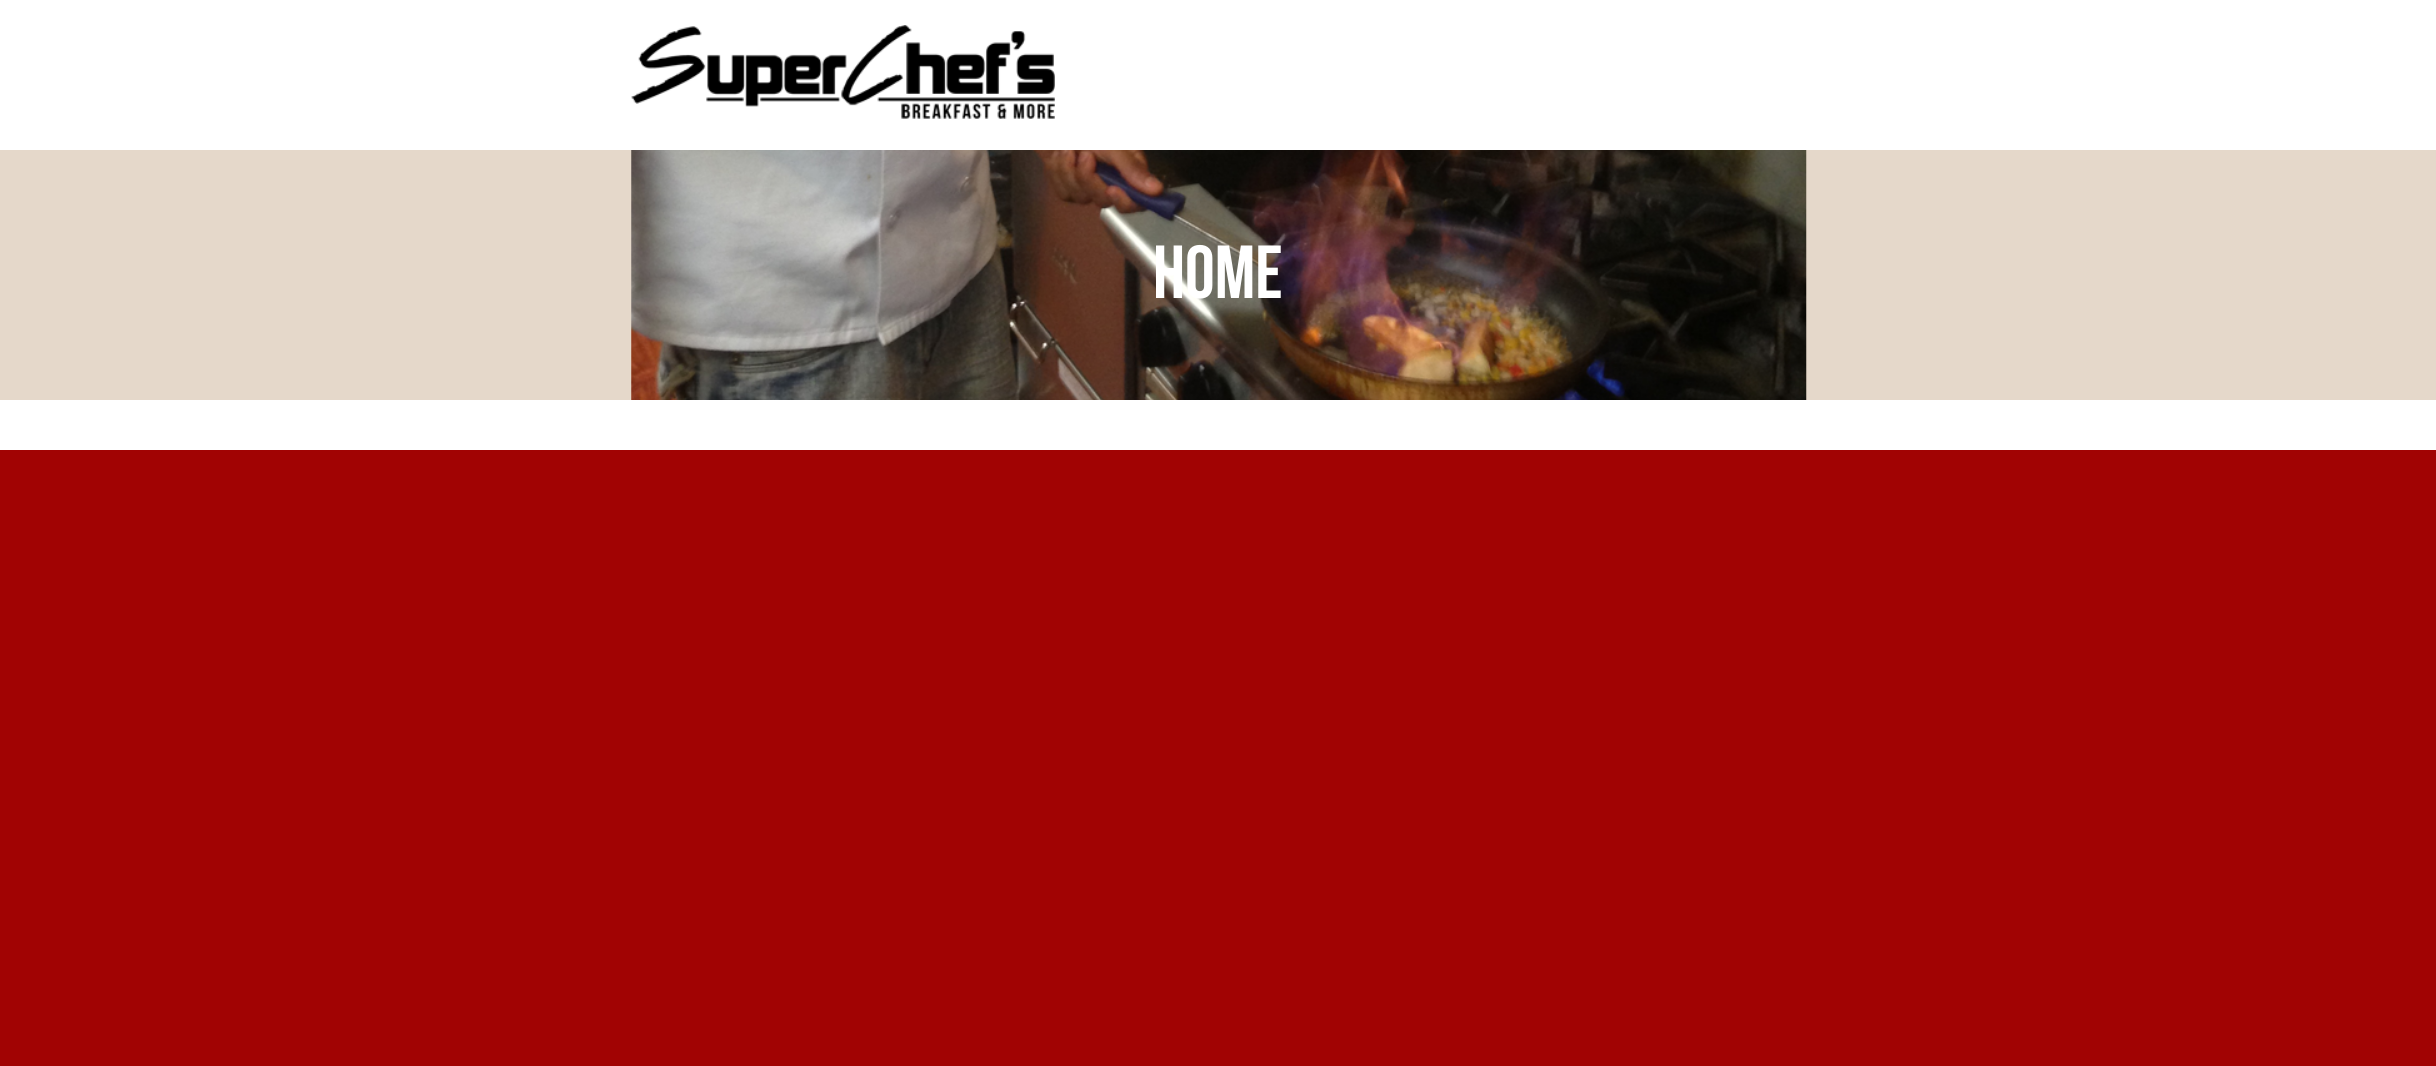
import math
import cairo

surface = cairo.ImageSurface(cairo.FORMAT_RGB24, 2436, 1066)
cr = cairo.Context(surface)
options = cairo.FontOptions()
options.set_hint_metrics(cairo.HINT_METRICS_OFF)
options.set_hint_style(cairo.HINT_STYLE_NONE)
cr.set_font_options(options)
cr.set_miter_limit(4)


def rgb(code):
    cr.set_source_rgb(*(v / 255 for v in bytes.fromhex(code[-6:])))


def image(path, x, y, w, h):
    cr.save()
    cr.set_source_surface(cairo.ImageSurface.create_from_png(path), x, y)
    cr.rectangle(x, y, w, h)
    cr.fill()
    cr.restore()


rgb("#a10303")
cr.paint()
rgb("#ffffff")
cr.rectangle(0, 0, 2436, 150)
cr.fill()
image("img/1.png", 631, 25, 424, 94)
rgb("#e5d8ca")
cr.rectangle(0, 150, 2436, 250)
cr.fill()
image("img/2.png", 631, 150, 1176, 250)
rgb("#ffffff")
cr.rectangle(0, 400, 2436, 50)
cr.fill()
cr.select_font_face("Bebas Neue")
cr.set_font_size(75)
cr.move_to(1153, 298)
cr.show_text("HOME")
surface.write_to_png("page.png")
